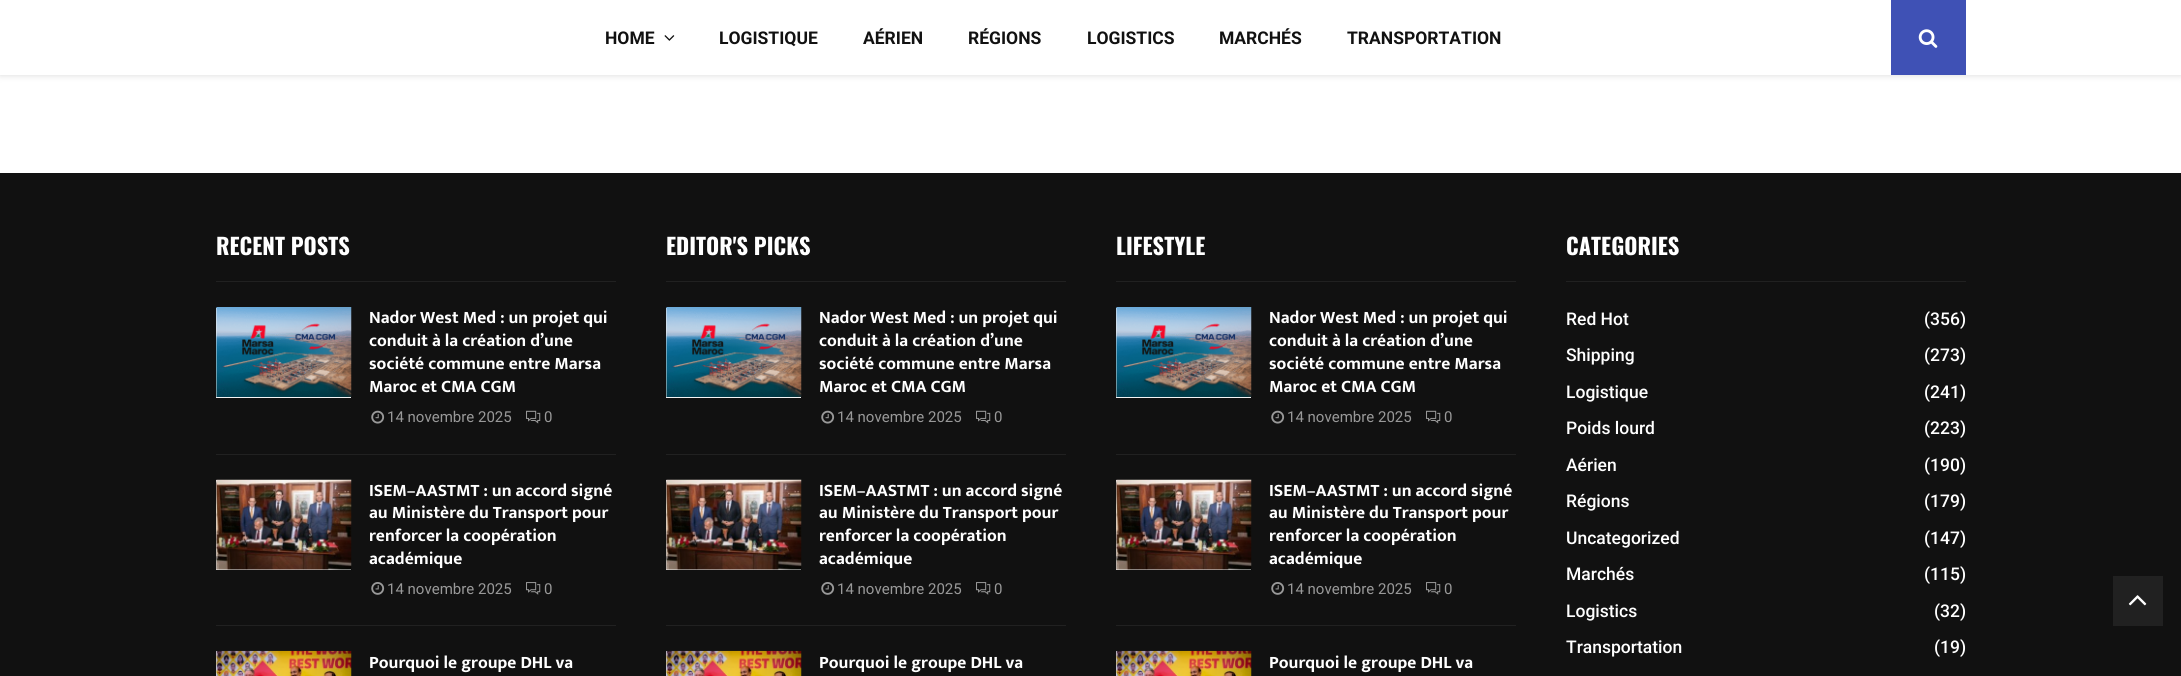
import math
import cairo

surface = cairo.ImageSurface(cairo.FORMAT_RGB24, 2181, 676)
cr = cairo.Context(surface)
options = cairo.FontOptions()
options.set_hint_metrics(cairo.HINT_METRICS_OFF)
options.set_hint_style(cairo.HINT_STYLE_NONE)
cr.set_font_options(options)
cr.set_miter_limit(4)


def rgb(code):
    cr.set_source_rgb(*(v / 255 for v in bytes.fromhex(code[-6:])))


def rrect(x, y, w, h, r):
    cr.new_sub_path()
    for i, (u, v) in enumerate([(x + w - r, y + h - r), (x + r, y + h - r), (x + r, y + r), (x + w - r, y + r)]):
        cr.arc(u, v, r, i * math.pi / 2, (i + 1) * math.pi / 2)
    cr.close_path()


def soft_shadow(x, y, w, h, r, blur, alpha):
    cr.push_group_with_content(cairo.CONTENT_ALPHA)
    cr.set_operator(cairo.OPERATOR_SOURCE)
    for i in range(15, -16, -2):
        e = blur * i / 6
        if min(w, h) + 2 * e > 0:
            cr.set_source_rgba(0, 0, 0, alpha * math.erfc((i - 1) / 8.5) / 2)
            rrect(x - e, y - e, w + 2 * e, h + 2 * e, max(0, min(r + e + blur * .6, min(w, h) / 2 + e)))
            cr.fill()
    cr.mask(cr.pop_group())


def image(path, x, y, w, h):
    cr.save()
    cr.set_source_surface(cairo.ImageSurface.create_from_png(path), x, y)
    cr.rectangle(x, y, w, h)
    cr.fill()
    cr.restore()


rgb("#ffffff")
cr.paint()
rgb("#bebebe")
soft_shadow(0, 1, 2181, 75, 0, 3, 0.46)
rgb("#ffffff")
cr.rectangle(0, 0, 2181, 75)
cr.fill()
image("img/1.png", 664, 35, 11, 6)
rgb("#3f51b5")
cr.rectangle(1891, 0, 75, 75)
cr.fill()
image("img/2.png", 1918, 29, 20, 19)
for x, y, w, h, color in [
    (0, 173, 2181, 503, "#111111"),
    (216, 281, 400, 1, "#212121"),
    (216, 454, 400, 1, "#212121"),
    (216, 308, 135, 90, "#f5f5f5"),
]:
    rgb(color)
    cr.rectangle(x, y, w, h)
    cr.fill()
image("img/3.png", 216, 307, 136, 90)
image("img/4.png", 371, 410, 14, 14)
image("img/5.png", 526, 410, 15, 14)
rgb("#212121")
cr.rectangle(216, 625, 400, 1)
cr.fill()
rgb("#f5f5f5")
cr.rectangle(216, 480, 135, 90)
cr.fill()
image("img/6.png", 216, 479, 136, 91)
image("img/7.png", 371, 582, 14, 13)
image("img/8.png", 526, 582, 15, 13)
cr.rectangle(216, 651, 1, 25)
cr.fill()
image("img/9.png", 216, 650, 136, 26)
for x, y, w, h, color in [
    (666, 281, 400, 1, "#212121"),
    (666, 454, 400, 1, "#212121"),
    (666, 308, 135, 90, "#f5f5f5"),
]:
    rgb(color)
    cr.rectangle(x, y, w, h)
    cr.fill()
image("img/3.png", 666, 307, 136, 90)
image("img/4.png", 821, 410, 14, 14)
image("img/5.png", 976, 410, 15, 14)
rgb("#212121")
cr.rectangle(666, 625, 400, 1)
cr.fill()
rgb("#f5f5f5")
cr.rectangle(666, 480, 135, 90)
cr.fill()
image("img/6.png", 666, 479, 136, 91)
image("img/7.png", 821, 582, 14, 13)
image("img/8.png", 976, 582, 15, 13)
cr.rectangle(666, 651, 1, 25)
cr.fill()
image("img/9.png", 666, 650, 136, 26)
for x, y, w, h, color in [
    (1116, 281, 400, 1, "#212121"),
    (1116, 454, 400, 1, "#212121"),
    (1116, 308, 135, 90, "#f5f5f5"),
]:
    rgb(color)
    cr.rectangle(x, y, w, h)
    cr.fill()
image("img/3.png", 1116, 307, 136, 90)
image("img/4.png", 1271, 410, 14, 14)
image("img/5.png", 1426, 410, 15, 14)
rgb("#212121")
cr.rectangle(1116, 625, 400, 1)
cr.fill()
rgb("#f5f5f5")
cr.rectangle(1116, 480, 135, 90)
cr.fill()
image("img/6.png", 1116, 479, 136, 91)
image("img/7.png", 1271, 582, 14, 13)
image("img/8.png", 1426, 582, 15, 13)
cr.rectangle(1116, 651, 1, 25)
cr.fill()
image("img/9.png", 1116, 650, 136, 26)
rgb("#212121")
cr.rectangle(1566, 281, 400, 1)
cr.fill()
cr.rectangle(2113, 576, 50, 50)
cr.fill()
image("img/10.png", 2128, 595, 19, 11)
cr.select_font_face("Roboto", cairo.FONT_SLANT_NORMAL, cairo.FONT_WEIGHT_BOLD)
cr.set_font_size(17.5)
rgb("#111111")
for x, y, s in [
    (605, 44, "HOME"),
    (719, 44, "LOGISTIQUE"),
    (863, 44, "AÉRIEN"),
    (968, 44, "RÉGIONS"),
    (1087, 44, "LOGISTICS"),
    (1219, 44, "MARCHÉS"),
    (1347, 44, "TRANSPORTATION"),
]:
    cr.move_to(x, y)
    cr.show_text(s)
cr.select_font_face("Oswald", cairo.FONT_SLANT_NORMAL, cairo.FONT_WEIGHT_BOLD)
cr.set_font_size(22.5)
rgb("#ffffff")
cr.move_to(216, 255)
cr.show_text("RECENT POSTS")
cr.select_font_face("Mukta Vaani", cairo.FONT_SLANT_NORMAL, cairo.FONT_WEIGHT_BOLD)
cr.set_font_size(17.5)
for x, y, s in [
    (369, 323, "Nador West Med : un projet qui"),
    (369, 346, "conduit à la création d’une"),
    (369, 369, "société commune entre Marsa"),
    (369, 392, "Maroc et CMA CGM"),
]:
    cr.move_to(x, y)
    cr.show_text(s)
cr.select_font_face("Roboto")
cr.set_font_size(15)
rgb("#999999")
cr.move_to(387, 422)
cr.show_text("14 novembre 2025")
cr.move_to(544, 422)
cr.show_text("0")
cr.select_font_face("Mukta Vaani", cairo.FONT_SLANT_NORMAL, cairo.FONT_WEIGHT_BOLD)
cr.set_font_size(17.5)
rgb("#ffffff")
for x, y, s in [
    (369, 496, "ISEM–AASTMT : un accord signé"),
    (369, 518, "au Ministère du Transport pour"),
    (369, 541, "renforcer la coopération"),
    (369, 564, "académique"),
]:
    cr.move_to(x, y)
    cr.show_text(s)
cr.select_font_face("Roboto")
cr.set_font_size(15)
rgb("#999999")
cr.move_to(387, 594)
cr.show_text("14 novembre 2025")
cr.move_to(544, 594)
cr.show_text("0")
cr.select_font_face("Mukta Vaani", cairo.FONT_SLANT_NORMAL, cairo.FONT_WEIGHT_BOLD)
cr.set_font_size(17.5)
rgb("#ffffff")
cr.move_to(369, 668)
cr.show_text("Pourquoi le groupe DHL va")
cr.select_font_face("Oswald", cairo.FONT_SLANT_NORMAL, cairo.FONT_WEIGHT_BOLD)
cr.set_font_size(22.5)
cr.move_to(666, 255)
cr.show_text("EDITOR'S PICKS")
cr.select_font_face("Mukta Vaani", cairo.FONT_SLANT_NORMAL, cairo.FONT_WEIGHT_BOLD)
cr.set_font_size(17.5)
for x, y, s in [
    (819, 323, "Nador West Med : un projet qui"),
    (819, 346, "conduit à la création d’une"),
    (819, 369, "société commune entre Marsa"),
    (819, 392, "Maroc et CMA CGM"),
]:
    cr.move_to(x, y)
    cr.show_text(s)
cr.select_font_face("Roboto")
cr.set_font_size(15)
rgb("#999999")
cr.move_to(837, 422)
cr.show_text("14 novembre 2025")
cr.move_to(994, 422)
cr.show_text("0")
cr.select_font_face("Mukta Vaani", cairo.FONT_SLANT_NORMAL, cairo.FONT_WEIGHT_BOLD)
cr.set_font_size(17.5)
rgb("#ffffff")
for x, y, s in [
    (819, 496, "ISEM–AASTMT : un accord signé"),
    (819, 518, "au Ministère du Transport pour"),
    (819, 541, "renforcer la coopération"),
    (819, 564, "académique"),
]:
    cr.move_to(x, y)
    cr.show_text(s)
cr.select_font_face("Roboto")
cr.set_font_size(15)
rgb("#999999")
cr.move_to(837, 594)
cr.show_text("14 novembre 2025")
cr.move_to(994, 594)
cr.show_text("0")
cr.select_font_face("Mukta Vaani", cairo.FONT_SLANT_NORMAL, cairo.FONT_WEIGHT_BOLD)
cr.set_font_size(17.5)
rgb("#ffffff")
cr.move_to(819, 668)
cr.show_text("Pourquoi le groupe DHL va")
cr.select_font_face("Oswald", cairo.FONT_SLANT_NORMAL, cairo.FONT_WEIGHT_BOLD)
cr.set_font_size(22.5)
cr.move_to(1116, 255)
cr.show_text("LIFESTYLE")
cr.select_font_face("Mukta Vaani", cairo.FONT_SLANT_NORMAL, cairo.FONT_WEIGHT_BOLD)
cr.set_font_size(17.5)
for x, y, s in [
    (1269, 323, "Nador West Med : un projet qui"),
    (1269, 346, "conduit à la création d’une"),
    (1269, 369, "société commune entre Marsa"),
    (1269, 392, "Maroc et CMA CGM"),
]:
    cr.move_to(x, y)
    cr.show_text(s)
cr.select_font_face("Roboto")
cr.set_font_size(15)
rgb("#999999")
cr.move_to(1287, 422)
cr.show_text("14 novembre 2025")
cr.move_to(1444, 422)
cr.show_text("0")
cr.select_font_face("Mukta Vaani", cairo.FONT_SLANT_NORMAL, cairo.FONT_WEIGHT_BOLD)
cr.set_font_size(17.5)
rgb("#ffffff")
for x, y, s in [
    (1269, 496, "ISEM–AASTMT : un accord signé"),
    (1269, 518, "au Ministère du Transport pour"),
    (1269, 541, "renforcer la coopération"),
    (1269, 564, "académique"),
]:
    cr.move_to(x, y)
    cr.show_text(s)
cr.select_font_face("Roboto")
cr.set_font_size(15)
rgb("#999999")
cr.move_to(1287, 594)
cr.show_text("14 novembre 2025")
cr.move_to(1444, 594)
cr.show_text("0")
cr.select_font_face("Mukta Vaani", cairo.FONT_SLANT_NORMAL, cairo.FONT_WEIGHT_BOLD)
cr.set_font_size(17.5)
rgb("#ffffff")
cr.move_to(1269, 668)
cr.show_text("Pourquoi le groupe DHL va")
cr.select_font_face("Oswald", cairo.FONT_SLANT_NORMAL, cairo.FONT_WEIGHT_BOLD)
cr.set_font_size(22.5)
cr.move_to(1566, 255)
cr.show_text("CATEGORIES")
cr.select_font_face("Roboto Medium")
cr.set_font_size(17.5)
for x, y, s in [
    (1566, 325, "Red Hot"),
    (1924, 325, "(356)"),
    (1566, 361, "Shipping"),
    (1924, 361, "(273)"),
    (1566, 398, "Logistique"),
    (1924, 398, "(241)"),
    (1566, 434, "Poids lourd"),
    (1924, 434, "(223)"),
    (1566, 471, "Aérien"),
    (1924, 471, "(190)"),
    (1566, 507, "Régions"),
    (1924, 507, "(179)"),
    (1566, 544, "Uncategorized"),
    (1924, 544, "(147)"),
    (1566, 580, "Marchés"),
    (1924, 580, "(115)"),
    (1566, 617, "Logistics"),
    (1934, 617, "(32)"),
    (1566, 653, "Transportation"),
    (1934, 653, "(19)"),
]:
    cr.move_to(x, y)
    cr.show_text(s)
surface.write_to_png("page.png")
